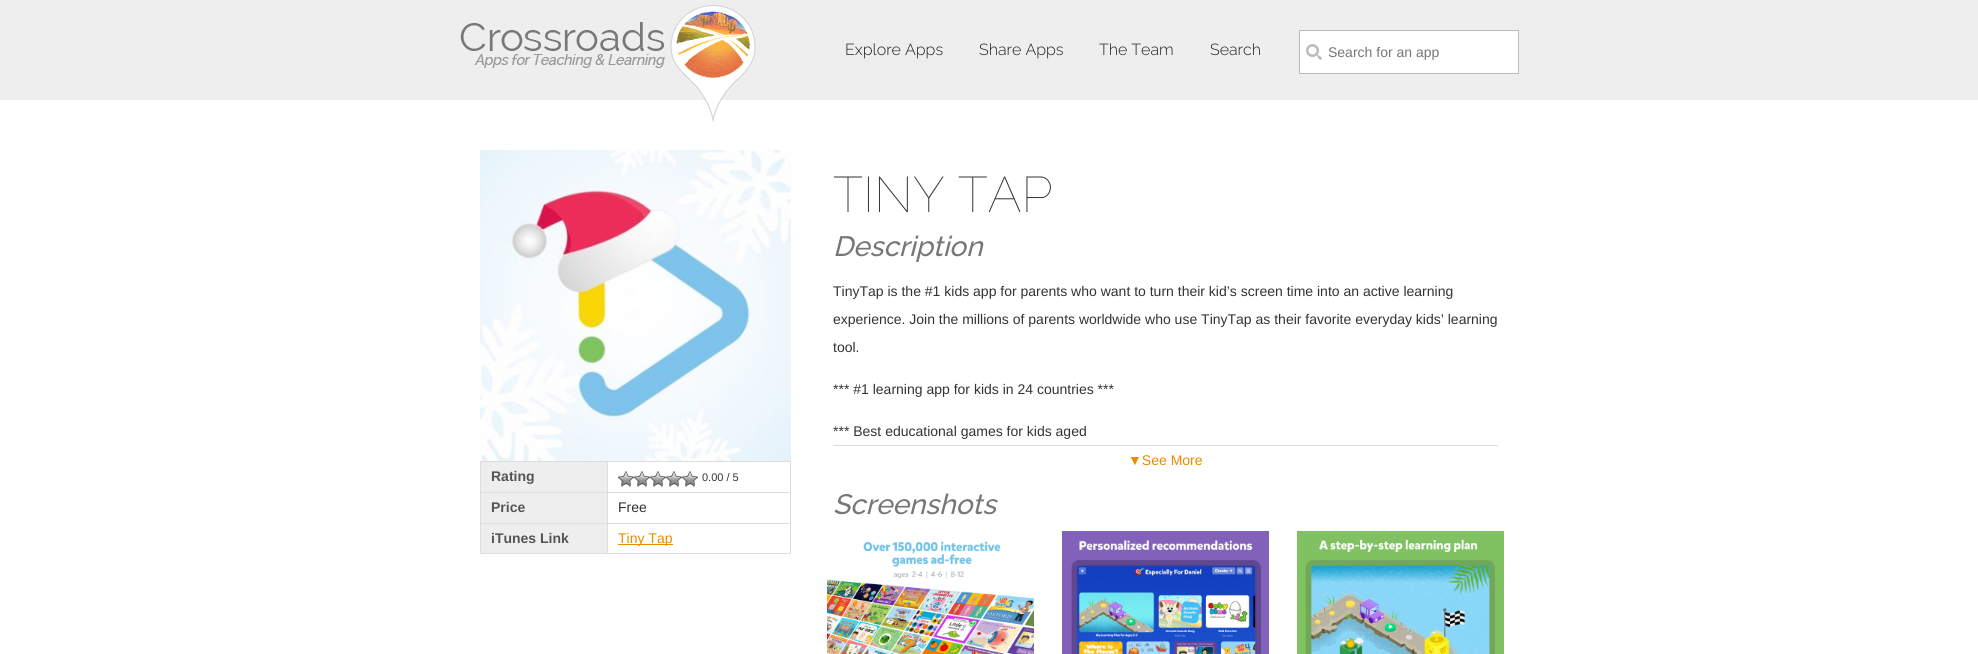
import math
import cairo

surface = cairo.ImageSurface(cairo.FORMAT_RGB24, 1978, 654)
cr = cairo.Context(surface)
options = cairo.FontOptions()
options.set_hint_metrics(cairo.HINT_METRICS_OFF)
options.set_hint_style(cairo.HINT_STYLE_NONE)
cr.set_font_options(options)
cr.set_miter_limit(4)


def rgb(code):
    cr.set_source_rgb(*(v / 255 for v in bytes.fromhex(code[-6:])))


def image(path, x, y, w, h):
    cr.save()
    cr.set_source_surface(cairo.ImageSurface.create_from_png(path), x, y)
    cr.rectangle(x, y, w, h)
    cr.fill()
    cr.restore()


rgb("#ffffff")
cr.paint()
rgb("#eeeeee")
cr.rectangle(0, 0, 1978, 100)
cr.fill()
image("img/1.png", 460, 5, 296, 117)
rgb("#ffffff")
cr.rectangle(1300, 31, 218, 42)
cr.fill()
image("img/2.png", 1306, 44, 16, 16)
cr.rectangle(1299.5, 30.5, 219, 43)
rgb("#bbbbbb")
cr.set_line_width(1)
cr.stroke()
image("img/3.png", 480, 150, 311, 311)
for x, y, w, h, color in [
    (481, 462, 126, 30, "#eeeeee"),
    (607, 461, 184, 1, "#dddddd"),
    (607, 492, 184, 1, "#dddddd"),
    (607, 523, 184, 1, "#dddddd"),
    (790, 523, 1, 31, "#dddddd"),
    (607, 553, 184, 1, "#dddddd"),
    (607, 523, 1, 31, "#dddddd"),
    (480, 523, 128, 1, "#dddddd"),
    (607, 492, 1, 32, "#dddddd"),
    (480, 492, 128, 1, "#dddddd"),
    (607, 461, 1, 32, "#dddddd"),
    (480, 461, 128, 1, "#dddddd"),
    (480, 553, 128, 1, "#dddddd"),
    (480, 523, 1, 31, "#dddddd"),
    (480, 492, 1, 32, "#dddddd"),
    (480, 461, 1, 32, "#dddddd"),
    (790, 492, 1, 32, "#dddddd"),
    (790, 461, 1, 32, "#dddddd"),
]:
    rgb(color)
    cr.rectangle(x, y, w, h)
    cr.fill()
image("img/4.png", 618, 471, 16, 16)
image("img/4.png", 634, 471, 16, 16)
image("img/4.png", 650, 471, 16, 16)
image("img/4.png", 666, 471, 16, 16)
image("img/4.png", 682, 471, 16, 16)
for x, y, w, h, color in [
    (481, 493, 126, 30, "#eeeeee"),
    (481, 524, 126, 29, "#eeeeee"),
    (618, 544, 55, 1, "#ea8b00"),
    (833, 445, 665, 1, "#dddddd"),
]:
    rgb(color)
    cr.rectangle(x, y, w, h)
    cr.fill()
image("img/5.png", 827, 541, 207, 113)
image("img/6.png", 1062, 531, 207, 123)
image("img/7.png", 1297, 531, 207, 123)
cr.select_font_face("Raleway Light")
cr.set_font_size(16)
rgb("#202020")
for x, y, s in [
    (845, 55, "Explore Apps"),
    (979, 55, "Share Apps"),
    (1099, 55, "The Team"),
    (1210, 55, "Search"),
]:
    cr.move_to(x, y)
    cr.show_text(s)
cr.select_font_face("Liberation Sans")
cr.set_font_size(14)
rgb("#777777")
cr.move_to(1328, 57)
cr.show_text("Search for an app")
cr.select_font_face("Liberation Sans", cairo.FONT_SLANT_NORMAL, cairo.FONT_WEIGHT_BOLD)
rgb("#555555")
cr.move_to(491, 481)
cr.show_text("Rating")
cr.select_font_face("Liberation Sans")
cr.set_font_size(11)
rgb("#333333")
cr.move_to(702, 481)
cr.show_text("0.00 / 5")
cr.select_font_face("Liberation Sans", cairo.FONT_SLANT_NORMAL, cairo.FONT_WEIGHT_BOLD)
cr.set_font_size(14)
rgb("#555555")
cr.move_to(491, 512)
cr.show_text("Price")
cr.select_font_face("Liberation Sans")
rgb("#333333")
cr.move_to(618, 512)
cr.show_text("Free")
cr.select_font_face("Liberation Sans", cairo.FONT_SLANT_NORMAL, cairo.FONT_WEIGHT_BOLD)
rgb("#555555")
cr.move_to(491, 543)
cr.show_text("iTunes Link")
cr.select_font_face("Liberation Sans")
rgb("#ea8b00")
cr.move_to(618, 543)
cr.show_text("Tiny Tap")
cr.select_font_face("Raleway Thin")
cr.set_font_size(50)
rgb("#333333")
cr.move_to(833, 212)
cr.show_text("TINY TAP")
cr.select_font_face("Raleway Medium", cairo.FONT_SLANT_ITALIC)
cr.set_font_size(28)
rgb("#777777")
cr.move_to(833, 256)
cr.show_text("Description")
cr.select_font_face("Liberation Sans")
cr.set_font_size(14)
rgb("#333333")
for x, y, s in [
    (833, 296, "TinyTap is the #1 kids app for parents who want to turn their kid’s screen time into an active learning"),
    (833, 324, "experience. Join the millions of parents worldwide who use TinyTap as their favorite everyday kids’ learning"),
    (833, 352, "tool."),
    (833, 394, "*** #1 learning app for kids in 24 countries ***"),
    (833, 436, "*** Best educational games for kids aged"),
]:
    cr.move_to(x, y)
    cr.show_text(s)
rgb("#ea8b00")
cr.move_to(1128, 465)
cr.show_text("▼See More")
cr.select_font_face("Raleway Medium", cairo.FONT_SLANT_ITALIC)
cr.set_font_size(28)
rgb("#777777")
cr.move_to(833, 514)
cr.show_text("Screenshots")
surface.write_to_png("page.png")
